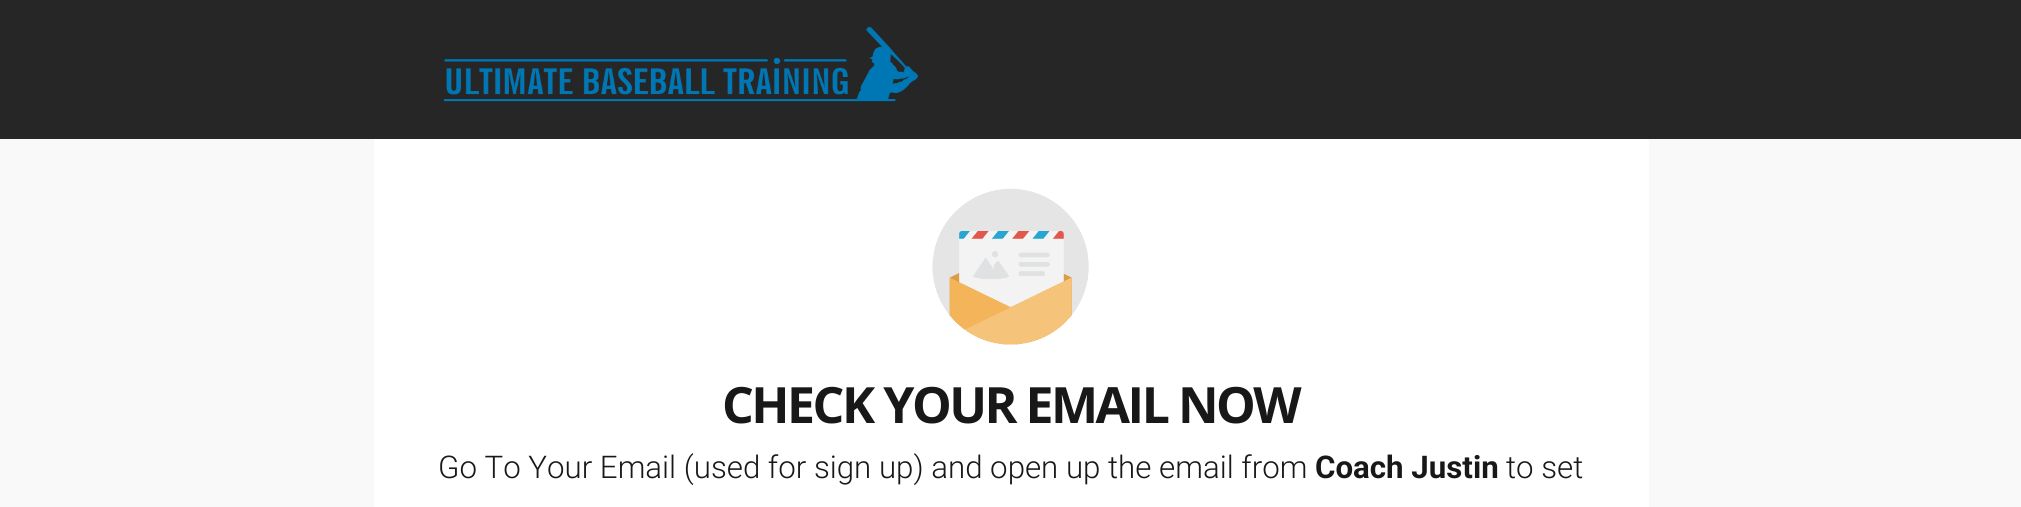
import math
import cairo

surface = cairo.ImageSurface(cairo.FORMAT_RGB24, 2021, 507)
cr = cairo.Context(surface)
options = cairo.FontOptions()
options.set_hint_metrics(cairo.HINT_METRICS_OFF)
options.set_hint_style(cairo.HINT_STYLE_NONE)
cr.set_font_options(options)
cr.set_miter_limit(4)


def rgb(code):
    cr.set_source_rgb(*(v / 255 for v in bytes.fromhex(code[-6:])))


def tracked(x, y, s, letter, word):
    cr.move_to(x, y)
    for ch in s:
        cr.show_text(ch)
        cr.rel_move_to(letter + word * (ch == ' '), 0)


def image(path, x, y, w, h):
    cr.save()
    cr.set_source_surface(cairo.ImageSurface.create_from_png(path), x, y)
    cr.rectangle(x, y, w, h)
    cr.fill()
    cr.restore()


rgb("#f9f9f9")
cr.paint()
rgb("#262626")
cr.rectangle(0, 0, 2021, 139)
cr.fill()
image("img/1.png", 443, 26, 476, 76)
rgb("#ffffff")
cr.rectangle(374, 139, 1275, 368)
cr.fill()
image("img/2.png", 932, 188, 157, 157)
cr.select_font_face("Open Sans", cairo.FONT_SLANT_NORMAL, cairo.FONT_WEIGHT_BOLD)
cr.set_font_size(50)
rgb("#181818")
tracked(722, 423, "CHECK YOUR EMAIL NOW", -2.5, 0)
cr.select_font_face("Roboto Light")
cr.set_font_size(31.25)
cr.move_to(438, 478)
cr.show_text("Go To Your Email (used for sign up) and open up the email from")
cr.select_font_face("Roboto", cairo.FONT_SLANT_NORMAL, cairo.FONT_WEIGHT_BOLD)
cr.move_to(1315, 478)
cr.show_text("Coach Justin")
cr.select_font_face("Roboto Light")
cr.move_to(1506, 478)
cr.show_text("to set")
surface.write_to_png("page.png")
